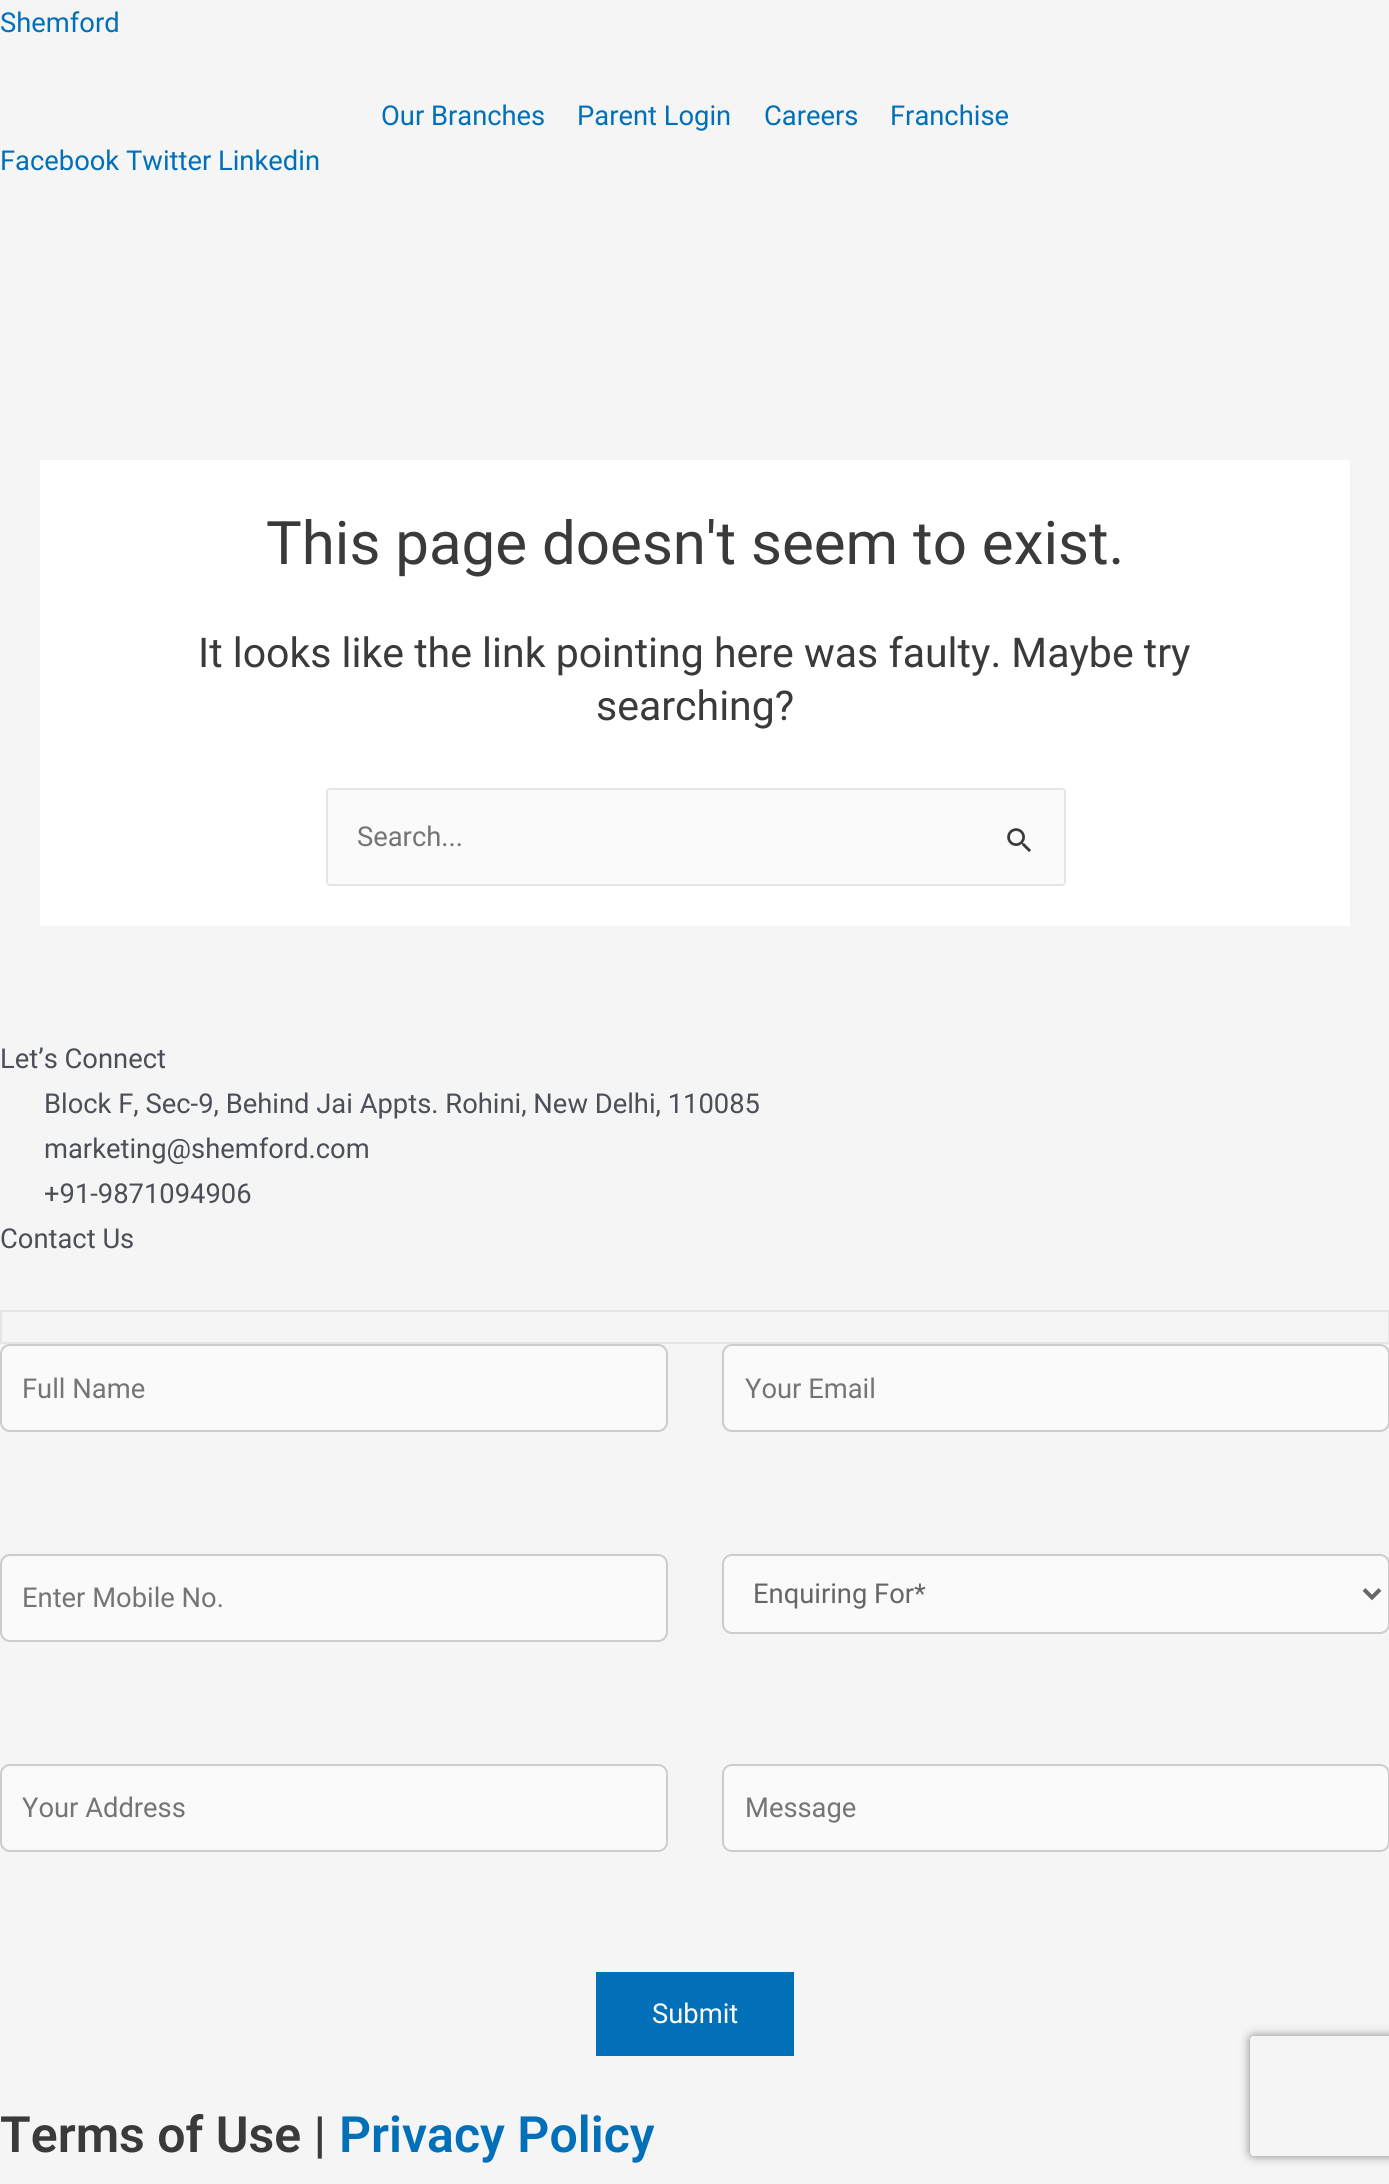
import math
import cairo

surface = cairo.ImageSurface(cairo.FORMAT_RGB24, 1389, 2184)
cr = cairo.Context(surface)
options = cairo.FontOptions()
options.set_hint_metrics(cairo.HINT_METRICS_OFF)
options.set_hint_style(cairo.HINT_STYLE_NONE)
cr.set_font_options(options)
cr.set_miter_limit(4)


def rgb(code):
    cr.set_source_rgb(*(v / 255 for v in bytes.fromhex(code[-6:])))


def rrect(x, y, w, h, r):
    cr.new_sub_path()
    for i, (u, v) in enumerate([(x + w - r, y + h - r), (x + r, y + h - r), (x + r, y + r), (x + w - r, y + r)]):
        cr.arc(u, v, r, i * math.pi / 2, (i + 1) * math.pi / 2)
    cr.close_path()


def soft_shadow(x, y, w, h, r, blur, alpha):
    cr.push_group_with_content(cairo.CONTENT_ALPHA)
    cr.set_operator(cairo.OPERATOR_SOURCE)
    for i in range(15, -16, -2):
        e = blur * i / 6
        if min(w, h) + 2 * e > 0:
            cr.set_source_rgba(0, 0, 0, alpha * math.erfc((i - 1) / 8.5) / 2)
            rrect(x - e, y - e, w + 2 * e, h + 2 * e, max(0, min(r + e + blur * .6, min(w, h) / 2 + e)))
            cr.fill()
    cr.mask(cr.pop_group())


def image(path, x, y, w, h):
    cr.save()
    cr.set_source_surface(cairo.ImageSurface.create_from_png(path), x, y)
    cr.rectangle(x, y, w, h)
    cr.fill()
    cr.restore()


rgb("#f5f5f5")
cr.paint()
rgb("#ffffff")
cr.rectangle(40, 460, 1310, 466)
cr.fill()
rgb("#fafafa")
rrect(327, 789, 738, 96, 3)
cr.fill_preserve()
rgb("#e5e5e5")
cr.stroke()
image("img/1.png", 1007, 828, 24, 24)
cr.rectangle(1, 1311, 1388, 32)
cr.stroke()
rgb("#fafafa")
rrect(1, 1345, 666, 86, 9)
cr.fill_preserve()
rgb("#cccccc")
cr.stroke()
rgb("#fafafa")
rrect(723, 1345, 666, 86, 9)
cr.fill_preserve()
rgb("#cccccc")
cr.stroke()
rgb("#fafafa")
rrect(1, 1555, 666, 86, 9)
cr.fill_preserve()
rgb("#cccccc")
cr.stroke()
rgb("#fafafa")
rrect(723, 1555, 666, 78, 9)
cr.fill_preserve()
rgb("#cccccc")
cr.stroke()
cr.new_path()
cr.move_to(1364, 1589.5)
cr.line_to(1372, 1597.5)
cr.line_to(1380, 1589.5)
rgb("#666666")
cr.set_line_width(4)
cr.stroke()
rgb("#fafafa")
rrect(1, 1765, 666, 86, 9)
cr.fill_preserve()
rgb("#cccccc")
cr.set_line_width(2)
cr.stroke()
rgb("#fafafa")
rrect(723, 1765, 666, 86, 9)
cr.fill_preserve()
rgb("#cccccc")
cr.stroke()
rgb("#0170b9")
cr.rectangle(596, 1972, 198, 84)
cr.fill()
cr.save()
cr.set_fill_rule(cairo.FILL_RULE_EVEN_ODD)
cr.new_path()
cr.move_to(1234, 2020)
cr.line_to(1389, 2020)
cr.line_to(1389, 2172)
cr.line_to(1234, 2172)
cr.close_path()
cr.move_to(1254, 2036)
cr.line_to(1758, 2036)
cr.curve_to(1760, 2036, 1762, 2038, 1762, 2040)
cr.line_to(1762, 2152)
cr.curve_to(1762, 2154, 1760, 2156, 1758, 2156)
cr.line_to(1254, 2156)
cr.curve_to(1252, 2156, 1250, 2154, 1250, 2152)
cr.line_to(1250, 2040)
cr.curve_to(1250, 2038, 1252, 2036, 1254, 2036)
cr.close_path()
cr.clip()
rgb("#808080")
soft_shadow(1250, 2036, 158, 120, 4, 5, 1)
cr.restore()
cr.select_font_face("Roboto")
cr.set_font_size(27.35)
for x, y, s in [
    (0, 32, "Shemford"),
    (381, 125, "Our Branches"),
    (577, 125, "Parent Login"),
    (764, 125, "Careers"),
    (890, 125, "Franchise"),
    (0, 170, "Facebook Twitter Linkedin"),
]:
    cr.move_to(x, y)
    cr.show_text(s)
cr.set_font_size(60)
rgb("#3a3a3a")
cr.move_to(266, 564)
cr.show_text("This page doesn't seem to exist.")
cr.set_font_size(41)
cr.move_to(198, 667)
cr.show_text("It looks like the link pointing here was faulty. Maybe try")
cr.move_to(596, 720)
cr.show_text("searching?")
cr.set_font_size(27.35)
rgb("#757575")
cr.move_to(357, 846)
cr.show_text("Search...")
rgb("#4b4f58")
for x, y, s in [
    (0, 1068, "Let’s Connect"),
    (44, 1113, "Block F, Sec-9, Behind Jai Appts. Rohini, New Delhi, 110085"),
    (44, 1158, "marketing@shemford.com"),
    (44, 1203, "+91-9871094906"),
    (0, 1248, "Contact Us"),
]:
    cr.move_to(x, y)
    cr.show_text(s)
rgb("#757575")
for x, y, s in [
    (22, 1398, "Full Name"),
    (745, 1398, "Your Email"),
    (22, 1607, "Enter Mobile No."),
]:
    cr.move_to(x, y)
    cr.show_text(s)
rgb("#666666")
cr.move_to(753, 1603)
cr.show_text("Enquiring For*")
rgb("#757575")
cr.move_to(22, 1817)
cr.show_text("Your Address")
cr.move_to(745, 1817)
cr.show_text("Message")
rgb("#ffffff")
cr.move_to(652, 2023)
cr.show_text("Submit")
cr.select_font_face("Roboto SemiBold")
cr.set_font_size(50)
rgb("#3a3a3a")
cr.move_to(0, 2152)
cr.show_text("Terms of Use |")
rgb("#0170b9")
cr.move_to(339, 2152)
cr.show_text("Privacy Policy")
surface.write_to_png("page.png")
